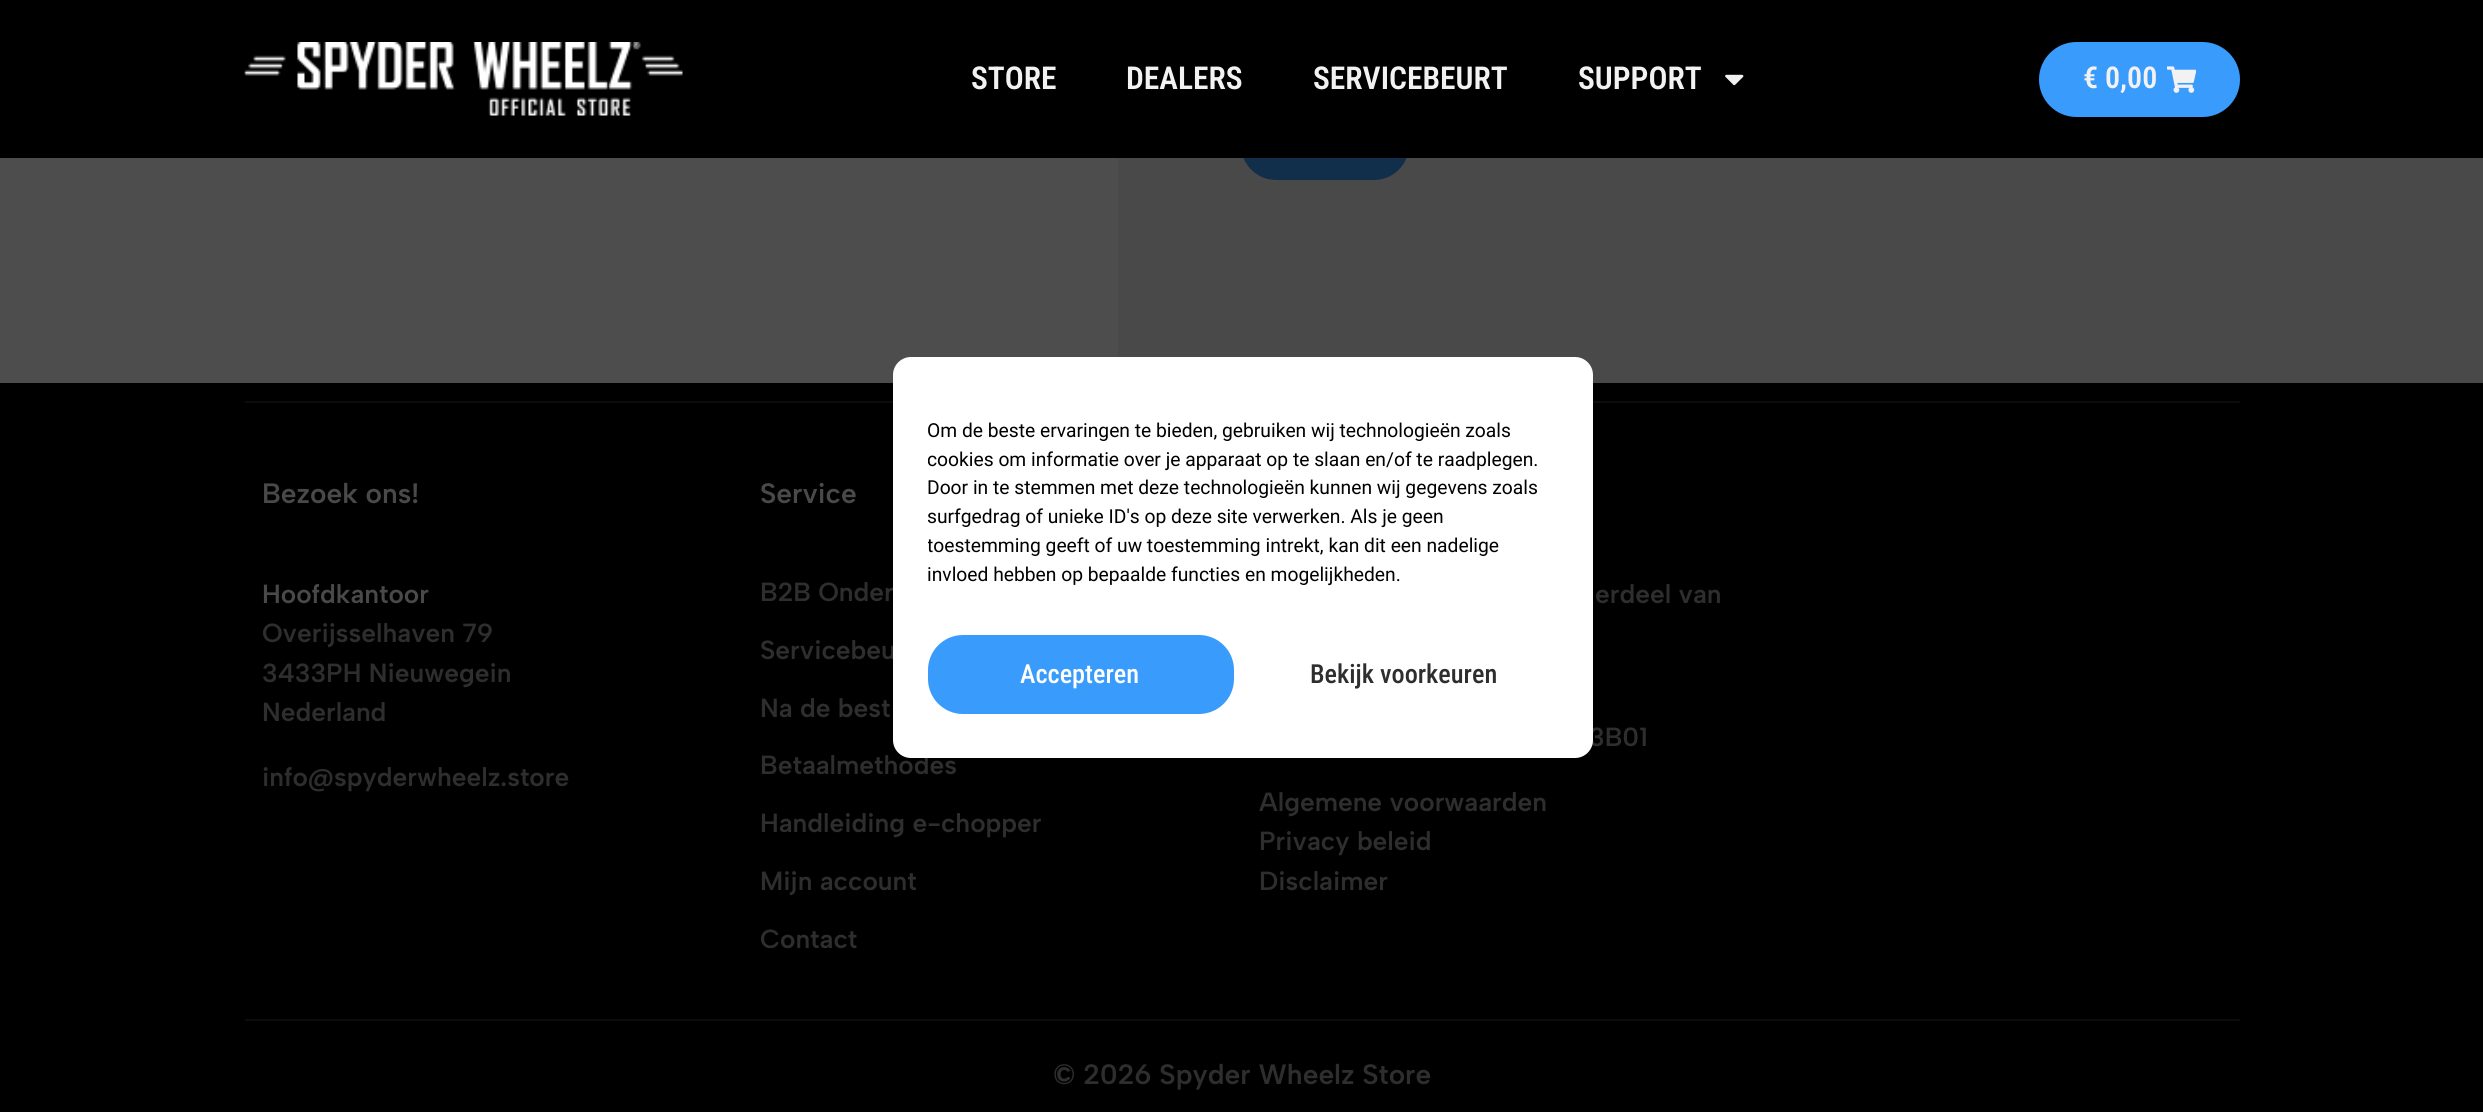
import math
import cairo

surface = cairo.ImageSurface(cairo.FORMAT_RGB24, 2483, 1112)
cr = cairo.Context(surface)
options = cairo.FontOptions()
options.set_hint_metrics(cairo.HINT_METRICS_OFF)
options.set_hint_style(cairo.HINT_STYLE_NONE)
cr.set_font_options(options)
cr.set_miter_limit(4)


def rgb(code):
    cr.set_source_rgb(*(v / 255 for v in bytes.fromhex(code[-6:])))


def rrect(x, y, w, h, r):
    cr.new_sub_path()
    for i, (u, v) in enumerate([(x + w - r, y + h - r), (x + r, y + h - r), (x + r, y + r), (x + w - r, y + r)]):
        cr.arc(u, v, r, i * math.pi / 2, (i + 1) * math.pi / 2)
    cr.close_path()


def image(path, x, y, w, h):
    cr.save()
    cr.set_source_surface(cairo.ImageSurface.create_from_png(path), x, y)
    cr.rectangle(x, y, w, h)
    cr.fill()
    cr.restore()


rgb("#4d4d4d")
cr.paint()
rgb("#494949")
cr.rectangle(1118, 158, 1365, 225)
cr.fill()
rgb("#112f4b")
rrect(1241, 110, 168, 70, 35)
cr.fill()
rgb("#000000")
cr.rectangle(0, 0, 2483, 158)
cr.fill()
image("img/1.png", 244, 42, 439, 74)
image("img/2.png", 1725, 74, 19, 12)
rgb("#399bfb")
rrect(2039, 42, 201, 75, 37.5)
cr.fill()
image("img/3.png", 2167, 66, 29, 27)
for x, y, w, h, color in [
    (0, 383, 2483, 729, "#000000"),
    (245, 401, 1995, 2, "#0c0c0c"),
    (245, 1019, 1995, 2, "#0c0c0c"),
]:
    rgb(color)
    cr.rectangle(x, y, w, h)
    cr.fill()
cr.select_font_face("Roboto Condensed SemiBold")
cr.set_font_size(31.5)
rgb("#f2f2f2")
for x, y, s in [
    (971, 89, "STORE"),
    (1126, 89, "DEALERS"),
    (1313, 89, "SERVICEBEURT"),
    (1578, 89, "SUPPORT"),
]:
    cr.move_to(x, y)
    cr.show_text(s)
cr.set_font_size(30)
cr.move_to(2083, 88)
cr.show_text("€ 0,00")
cr.select_font_face("Albert Sans SemiBold")
cr.set_font_size(28)
rgb("#494949")
cr.move_to(262, 503)
cr.show_text("Bezoek ons!")
cr.set_font_size(26.25)
cr.move_to(262, 603)
cr.show_text("Hoofdkantoor")
rgb("#2e2e2e")
for x, y, s in [
    (262, 642, "Overijsselhaven 79"),
    (262, 682, "3433PH Nieuwegein"),
    (262, 721, "Nederland"),
    (262, 786, "info@spyderwheelz.store"),
]:
    cr.move_to(x, y)
    cr.show_text(s)
cr.set_font_size(28)
rgb("#494949")
cr.move_to(760, 503)
cr.show_text("Service")
cr.set_font_size(26.25)
rgb("#2e2e2e")
for x, y, s in [
    (760, 601, "B2B Onder"),
    (760, 659, "Servicebeu"),
    (760, 717, "Na de best"),
    (760, 774, "Betaalmethodes"),
    (760, 832, "Handleiding e-chopper"),
    (760, 890, "Mijn account"),
    (760, 948, "Contact"),
    (1595, 603, "erdeel van"),
    (1589, 746, "3B01"),
]:
    cr.move_to(x, y)
    cr.show_text(s)
rgb("#ffffff")
rrect(893, 357, 700, 401, 18)
cr.fill()
cr.select_font_face("Roboto")
cr.set_font_size(19.25)
rgb("#000000")
cr.move_to(927, 581)
cr.show_text("invloed hebben op bepaalde functies en mogelijkheden.")
cr.save()
cr.rectangle(928, 418, 630, 182)
cr.clip()
cr.move_to(927, 552)
cr.show_text("toestemming geeft of uw toestemming intrekt, kan dit een nadelige")
cr.move_to(927, 523)
cr.show_text("surfgedrag of unieke ID's op deze site verwerken. Als je geen")
cr.restore()
cr.move_to(927, 494)
cr.show_text("Door in te stemmen met deze technologieën kunnen wij gegevens zoals")
cr.save()
cr.rectangle(928, 418, 630, 182)
cr.clip()
cr.move_to(927, 466)
cr.show_text("cookies om informatie over je apparaat op te slaan en/of te raadplegen.")
cr.move_to(927, 437)
cr.show_text("Om de beste ervaringen te bieden, gebruiken wij technologieën zoals")
cr.restore()
cr.select_font_face("Roboto Condensed Medium")
cr.set_font_size(26.25)
rgb("#2e2e2e")
cr.move_to(1310, 683)
cr.show_text("Bekijk voorkeuren")
rgb("#399bfb")
rrect(929, 636, 304, 77, 34)
cr.fill_preserve()
cr.stroke()
rgb("#ffffff")
cr.move_to(1020, 683)
cr.show_text("Accepteren")
cr.select_font_face("Albert Sans SemiBold")
rgb("#2e2e2e")
for x, y, s in [
    (1259, 811, "Algemene voorwaarden"),
    (1259, 850, "Privacy beleid"),
    (1259, 890, "Disclaimer"),
]:
    cr.move_to(x, y)
    cr.show_text(s)
cr.set_font_size(28)
cr.move_to(1053, 1084)
cr.show_text("© 2026 Spyder Wheelz Store")
surface.write_to_png("page.png")
